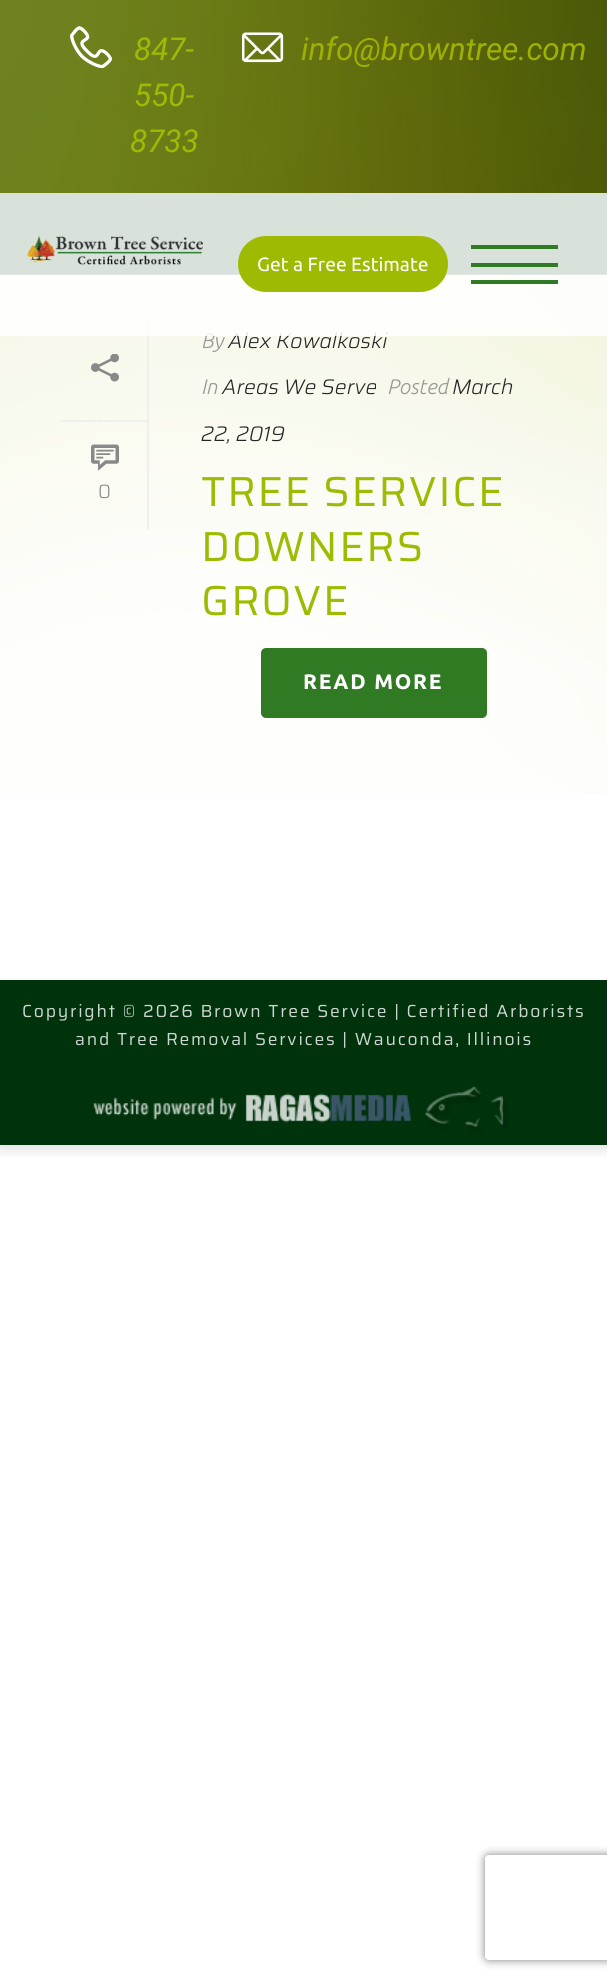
import math
import cairo

surface = cairo.ImageSurface(cairo.FORMAT_RGB24, 607, 1984)
cr = cairo.Context(surface)
options = cairo.FontOptions()
options.set_hint_metrics(cairo.HINT_METRICS_OFF)
options.set_hint_style(cairo.HINT_STYLE_NONE)
cr.set_font_options(options)
cr.set_miter_limit(4)


def rgb(code):
    cr.set_source_rgb(*(v / 255 for v in bytes.fromhex(code[-6:])))


def tracked(x, y, s, letter, word):
    cr.move_to(x, y)
    for ch in s:
        cr.show_text(ch)
        cr.rel_move_to(letter + word * (ch == ' '), 0)


def rrect(x, y, w, h, r):
    cr.new_sub_path()
    for i, (u, v) in enumerate([(x + w - r, y + h - r), (x + r, y + h - r), (x + r, y + r), (x + w - r, y + r)]):
        cr.arc(u, v, r, i * math.pi / 2, (i + 1) * math.pi / 2)
    cr.close_path()


def soft_shadow(x, y, w, h, r, blur, alpha):
    cr.push_group_with_content(cairo.CONTENT_ALPHA)
    cr.set_operator(cairo.OPERATOR_SOURCE)
    for i in range(15, -16, -2):
        e = blur * i / 6
        if min(w, h) + 2 * e > 0:
            cr.set_source_rgba(0, 0, 0, alpha * math.erfc((i - 1) / 8.5) / 2)
            rrect(x - e, y - e, w + 2 * e, h + 2 * e, max(0, min(r + e + blur * .6, min(w, h) / 2 + e)))
            cr.fill()
    cr.mask(cr.pop_group())


def image(path, x, y, w, h):
    cr.save()
    cr.set_source_surface(cairo.ImageSurface.create_from_png(path), x, y)
    cr.rectangle(x, y, w, h)
    cr.fill()
    cr.restore()


rgb("#ffffff")
cr.paint()
cr.save()
cr.rectangle(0, 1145, 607, 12)
cr.clip()
rgb("#000000")
soft_shadow(0, 0, 607, 1145, 0, 9, 0.2)
cr.restore()
image("img/1.png", 0, 0, 607, 193)
image("img/2.png", 70, 26, 42, 42)
image("img/3.png", 242, 32, 42, 31)
rgb("#00330c")
cr.rectangle(0, 193, 607, 82)
cr.fill()
image("img/5.png", 0, 274, 607, 520)
rgb("#efefef")
cr.rectangle(147, 319, 2, 210)
cr.fill()
cr.rectangle(61, 420, 86, 2)
cr.fill()
image("img/6.png", 91, 354, 28, 28)
image("img/7.png", 91, 444, 28, 27)
rgb("#307a23")
rrect(261, 648, 226, 70, 5)
cr.fill()
rgb("#00330c")
cr.rectangle(0, 980, 607, 165)
cr.fill()
image("img/8.png", 93, 1086, 415, 46)
cr.save()
cr.set_fill_rule(cairo.FILL_RULE_EVEN_ODD)
cr.new_path()
cr.move_to(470, 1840)
cr.line_to(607, 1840)
cr.line_to(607, 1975)
cr.line_to(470, 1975)
cr.close_path()
cr.move_to(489, 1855)
cr.line_to(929, 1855)
cr.curve_to(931, 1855, 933, 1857, 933, 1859)
cr.line_to(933, 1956)
cr.curve_to(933, 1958, 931, 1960, 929, 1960)
cr.line_to(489, 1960)
cr.curve_to(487, 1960, 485, 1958, 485, 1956)
cr.line_to(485, 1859)
cr.curve_to(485, 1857, 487, 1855, 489, 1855)
cr.close_path()
cr.clip()
rgb("#808080")
soft_shadow(485, 1855, 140, 105, 4, 4.5, 1)
cr.restore()
cr.select_font_face("Roboto", cairo.FONT_SLANT_ITALIC)
cr.set_font_size(31.5)
rgb("#9eba03")
for x, y, s in [
    (134, 60, "847-"),
    (134, 106, "550-"),
    (130, 152, "8733"),
]:
    cr.move_to(x, y)
    cr.show_text(s)
rgb("#9eb103")
cr.move_to(301, 60)
cr.show_text("info@browntree.com")
cr.select_font_face("Saira Light")
cr.set_font_size(19.25)
rgb("#898989")
cr.move_to(98, 498)
cr.show_text("0")
cr.select_font_face("Ubuntu Light", cairo.FONT_SLANT_ITALIC)
cr.set_font_size(21)
rgb("#999999")
cr.move_to(201, 348)
cr.show_text("By")
cr.select_font_face("Saira Light", cairo.FONT_SLANT_ITALIC)
rgb("#252525")
cr.move_to(228, 348)
cr.show_text("Alex Kowalkoski")
cr.set_source_rgba(1, 1, 1, 0.85)
cr.rectangle(0, 193, 607, 143)
cr.fill()
rgb("#307a23")
cr.rectangle(471, 280, 87, 4)
cr.rectangle(471, 245, 87, 4)
cr.rectangle(471, 263, 87, 4)
cr.fill()
rgb("#9eba03")
rrect(238, 236, 210, 56, 28)
cr.fill()
cr.select_font_face("Ubuntu")
cr.set_font_size(19.25)
rgb("#ffffff")
cr.move_to(257, 271)
cr.show_text("Get a Free Estimate")
image("img/4.png", 27, 236, 176, 29)
cr.select_font_face("Ubuntu Light", cairo.FONT_SLANT_ITALIC)
cr.set_font_size(21)
rgb("#999999")
cr.move_to(201, 394)
cr.show_text("In")
cr.select_font_face("Saira Light", cairo.FONT_SLANT_ITALIC)
rgb("#252525")
cr.move_to(222, 394)
cr.show_text("Areas We Serve")
cr.select_font_face("Ubuntu Light", cairo.FONT_SLANT_ITALIC)
rgb("#999999")
cr.move_to(387, 394)
cr.show_text("Posted")
cr.select_font_face("Saira Light", cairo.FONT_SLANT_ITALIC)
rgb("#252525")
cr.move_to(452, 394)
cr.show_text("March")
cr.move_to(201, 441)
cr.show_text("22, 2019")
cr.select_font_face("Saira")
cr.set_font_size(42)
rgb("#9eba03")
for x, y, s in [
    (201, 506, "TREE SERVICE"),
    (201, 561, "DOWNERS"),
    (201, 615, "GROVE"),
]:
    tracked(x, y, s, 1.75, 0)
cr.select_font_face("Ubuntu", cairo.FONT_SLANT_NORMAL, cairo.FONT_WEIGHT_BOLD)
cr.set_font_size(21)
rgb("#ffffff")
tracked(303, 689, "READ MORE", 1.75, 0)
cr.select_font_face("Saira")
cr.set_font_size(17.5)
rgb("#ccd6ce")
tracked(22, 1017, "Copyright © 2026 Brown Tree Service | Certified Arborists", 1.75, 0)
tracked(75, 1045, "and Tree Removal Services | Wauconda, Illinois", 1.75, 0)
surface.write_to_png("page.png")
